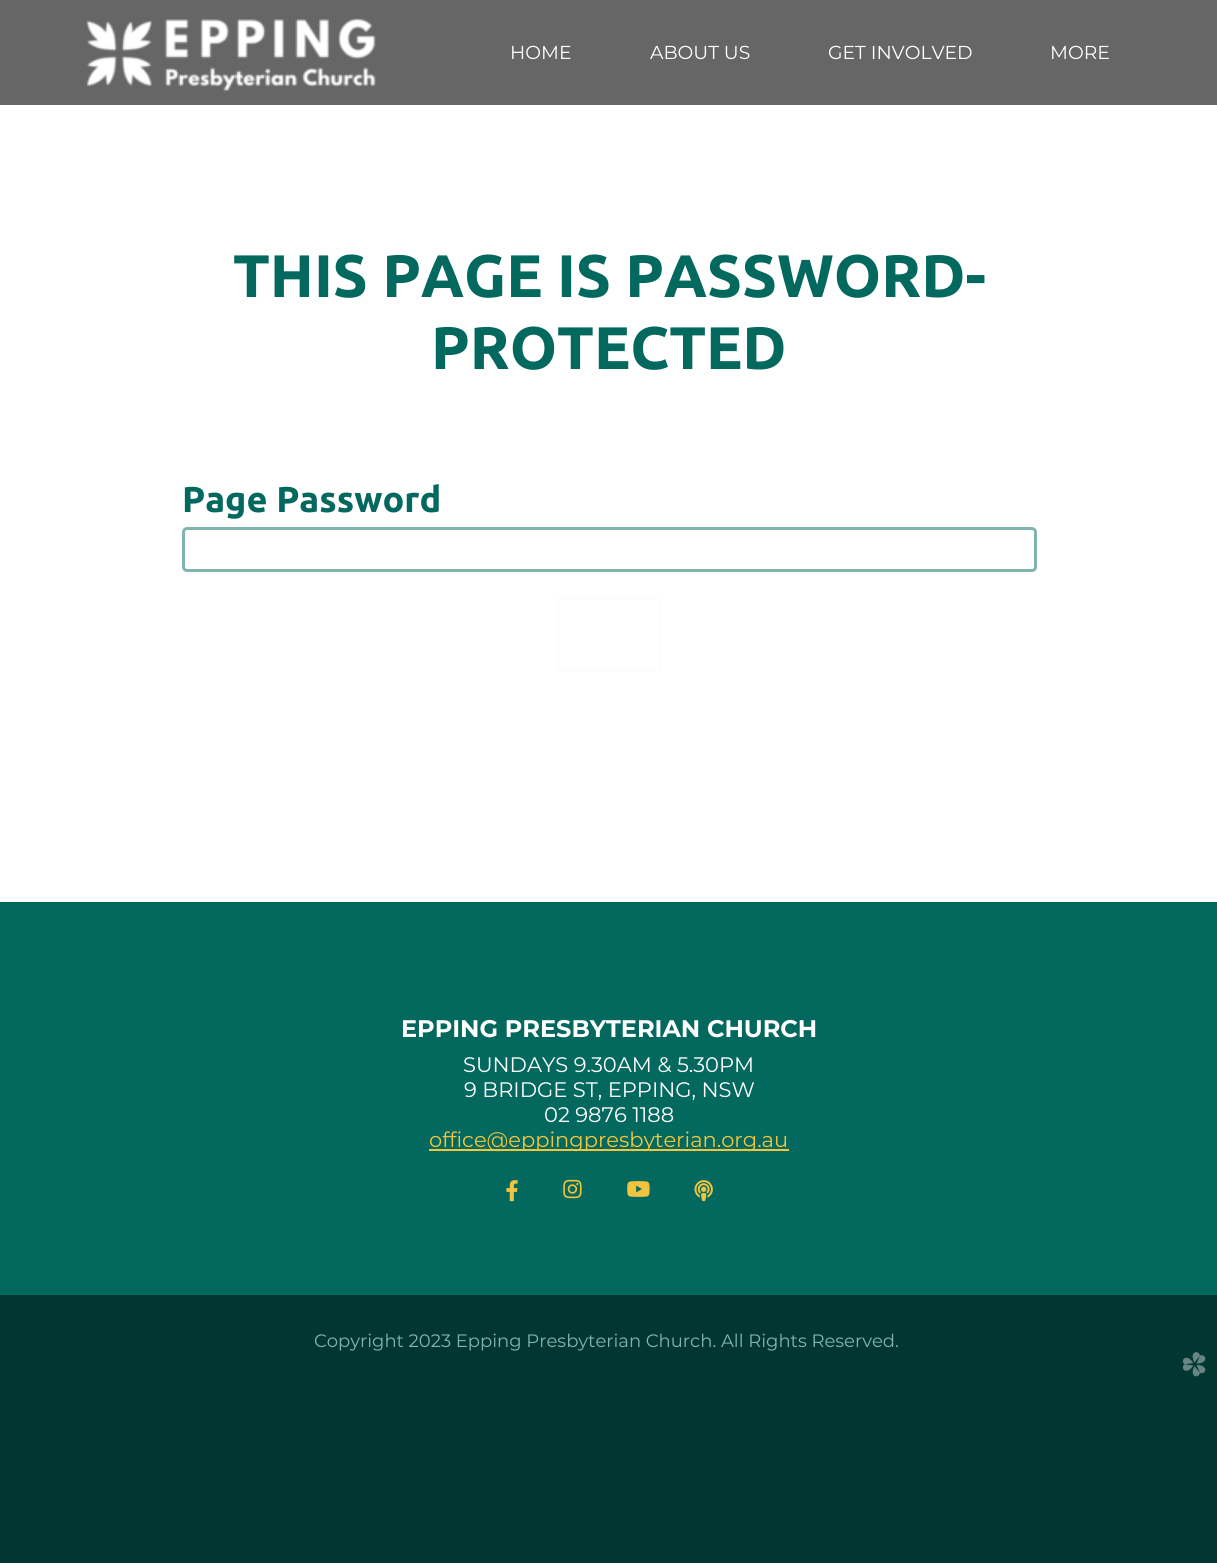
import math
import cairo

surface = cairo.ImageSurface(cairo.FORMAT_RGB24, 1217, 1563)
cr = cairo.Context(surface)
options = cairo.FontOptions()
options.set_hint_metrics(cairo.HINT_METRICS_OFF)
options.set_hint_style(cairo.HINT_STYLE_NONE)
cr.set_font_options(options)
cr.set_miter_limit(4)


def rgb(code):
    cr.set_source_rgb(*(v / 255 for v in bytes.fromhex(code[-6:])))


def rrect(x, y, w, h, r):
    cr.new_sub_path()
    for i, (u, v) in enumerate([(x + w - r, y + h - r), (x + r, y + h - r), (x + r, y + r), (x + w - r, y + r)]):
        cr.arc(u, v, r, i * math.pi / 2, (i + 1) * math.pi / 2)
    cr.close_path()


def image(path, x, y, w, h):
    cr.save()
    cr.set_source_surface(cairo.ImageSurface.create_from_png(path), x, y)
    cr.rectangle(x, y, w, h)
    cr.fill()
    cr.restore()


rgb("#023631")
cr.paint()
rgb("#666666")
cr.rectangle(0, 0, 1217, 105)
cr.fill()
image("img/1.png", 86, 18, 290, 74)
rgb("#ffffff")
cr.rectangle(0, 105, 1217, 797)
cr.fill()
rrect(183.5, 528.5, 852, 42, 3.5)
rgb("#81b4af")
cr.set_line_width(3)
cr.stroke()
cr.rectangle(558.5, 597.5, 102, 72)
rgb("#fffcff")
cr.stroke()
rgb("#03685e")
cr.rectangle(0, 902, 1217, 393)
cr.fill()
rgb("#f0c63e")
cr.rectangle(429, 1149, 360, 2)
cr.fill()
image("img/2.png", 506, 1180, 12, 22)
image("img/3.png", 563, 1179, 19, 20)
image("img/4.png", 627, 1181, 23, 16)
image("img/5.png", 694, 1180, 19, 22)
image("img/6.png", 1182, 1352, 24, 25)
cr.select_font_face("Montserrat")
cr.set_font_size(18.75)
rgb("#ffffff")
for x, y, s in [
    (510, 59, "HOME"),
    (650, 59, "ABOUT US"),
    (828, 59, "GET INVOLVED"),
    (1050, 59, "MORE"),
]:
    cr.move_to(x, y)
    cr.show_text(s)
cr.select_font_face("Ubuntu", cairo.FONT_SLANT_NORMAL, cairo.FONT_WEIGHT_BOLD)
cr.set_font_size(60)
rgb("#03685e")
cr.move_to(233, 297)
cr.show_text("THIS PAGE IS PASSWORD-")
cr.move_to(431, 369)
cr.show_text("PROTECTED")
cr.set_font_size(36)
cr.move_to(182, 512)
cr.show_text("Page Password")
cr.select_font_face("Montserrat", cairo.FONT_SLANT_NORMAL, cairo.FONT_WEIGHT_BOLD)
cr.set_font_size(24)
rgb("#ffffff")
cr.move_to(401, 1037)
cr.show_text("EPPING PRESBYTERIAN CHURCH")
cr.select_font_face("Montserrat")
cr.set_font_size(21)
for x, y, s in [
    (463, 1072, "SUNDAYS 9.30AM & 5.30PM"),
    (464, 1097, "9 BRIDGE ST, EPPING, NSW"),
    (544, 1122, "02 9876 1188"),
]:
    cr.move_to(x, y)
    cr.show_text(s)
rgb("#f0c63e")
cr.move_to(429, 1147)
cr.show_text("office@eppingpresbyterian.org.au")
cr.set_font_size(18)
rgb("#81b4af")
cr.move_to(314, 1347)
cr.show_text("Copyright 2023 Epping Presbyterian Church. All Rights Reserved.")
surface.write_to_png("page.png")
